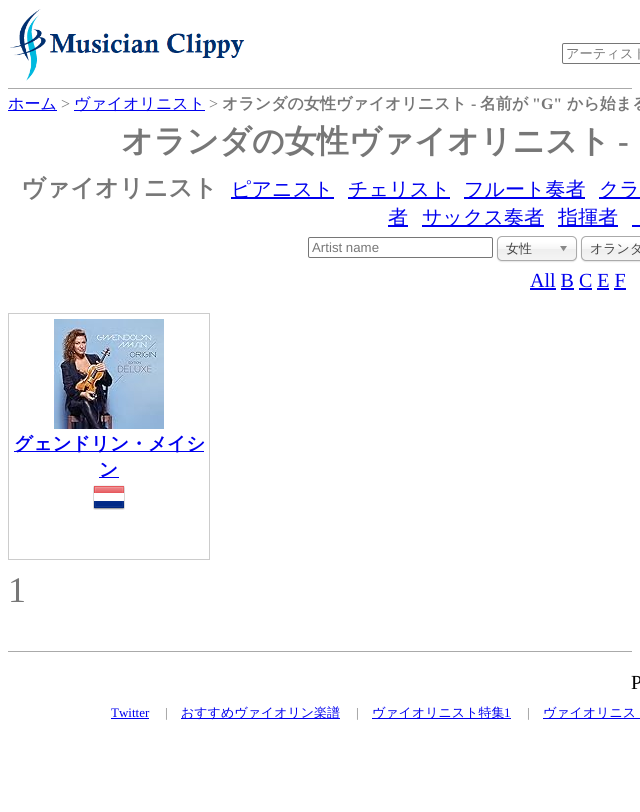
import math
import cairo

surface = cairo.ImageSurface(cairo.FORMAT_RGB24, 640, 812)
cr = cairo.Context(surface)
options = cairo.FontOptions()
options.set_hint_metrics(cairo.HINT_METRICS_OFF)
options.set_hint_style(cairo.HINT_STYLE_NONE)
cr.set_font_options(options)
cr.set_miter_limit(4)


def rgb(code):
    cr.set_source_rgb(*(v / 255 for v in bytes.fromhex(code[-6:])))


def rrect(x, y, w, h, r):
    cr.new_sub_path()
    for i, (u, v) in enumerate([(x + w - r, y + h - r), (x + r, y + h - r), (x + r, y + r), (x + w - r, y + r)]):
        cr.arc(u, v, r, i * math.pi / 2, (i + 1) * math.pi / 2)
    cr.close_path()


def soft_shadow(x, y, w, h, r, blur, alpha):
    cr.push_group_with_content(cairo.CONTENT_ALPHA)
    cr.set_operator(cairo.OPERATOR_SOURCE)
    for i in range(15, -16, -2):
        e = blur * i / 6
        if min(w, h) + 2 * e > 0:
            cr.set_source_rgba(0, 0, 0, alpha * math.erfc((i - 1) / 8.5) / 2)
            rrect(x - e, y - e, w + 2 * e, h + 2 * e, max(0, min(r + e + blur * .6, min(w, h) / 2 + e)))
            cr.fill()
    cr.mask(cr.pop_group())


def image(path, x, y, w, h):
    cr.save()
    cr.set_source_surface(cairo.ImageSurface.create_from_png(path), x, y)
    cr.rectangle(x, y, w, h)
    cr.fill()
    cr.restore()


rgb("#ffffff")
cr.paint()
rgb("#aaaaaa")
cr.rectangle(8, 88, 624, 1)
cr.fill()
image("img/1.png", 10, 9, 235, 72)
rrect(562.5, 43.5, 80, 20, 1.5)
rgb("#767676")
cr.set_line_width(1)
cr.stroke()
for x, y, w, h, color in [
    (8, 110, 49, 1, "#0000ee"),
    (74, 110, 131, 1, "#0000ee"),
    (231, 197, 103, 2, "#0000ee"),
    (348, 197, 102, 2, "#0000ee"),
    (464, 197, 121, 2, "#0000ee"),
    (599, 197, 41, 2, "#0000ee"),
    (388, 225, 20, 2, "#0000ee"),
    (422, 225, 122, 2, "#0000ee"),
    (558, 225, 60, 2, "#0000ee"),
    (632, 225, 8, 2, "#0000ee"),
]:
    rgb(color)
    cr.rectangle(x, y, w, h)
    cr.fill()
rrect(308.5, 237.5, 184, 20, 1.5)
rgb("#767676")
cr.stroke()
rgb("#000000")
soft_shadow(497, 237, 80, 25, 5, 0.5, 0.1)
gradient = cairo.LinearGradient(537, 237, 537, 260)
gradient.add_color_stop_rgba(0.2, 1, 1, 1, 1)
gradient.add_color_stop_rgba(0.5, 0.965, 0.965, 0.965, 1)
gradient.add_color_stop_rgba(0.52, 0.933, 0.933, 0.933, 1)
gradient.add_color_stop_rgba(1, 0.957, 0.957, 0.957, 1)
cr.set_source(gradient)
rrect(498, 237, 78, 23, 4)
cr.fill()
rrect(497.5, 236.5, 79, 24, 4.5)
rgb("#aaaaaa")
cr.stroke()
image("img/2.png", 560, 246, 7, 6)
rgb("#000000")
soft_shadow(581, 237, 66, 25, 5, 0.5, 0.1)
gradient = cairo.LinearGradient(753, 237, 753, 260)
gradient.add_color_stop_rgba(0.2, 1, 1, 1, 1)
gradient.add_color_stop_rgba(0.5, 0.965, 0.965, 0.965, 1)
gradient.add_color_stop_rgba(0.52, 0.933, 0.933, 0.933, 1)
gradient.add_color_stop_rgba(1, 0.957, 0.957, 0.957, 1)
cr.set_source(gradient)
rrect(582, 237, 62, 23, 4)
cr.fill()
rrect(581.5, 236.5, 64, 24, 4.5)
rgb("#aaaaaa")
cr.stroke()
for x, y, w, h, color in [
    (530, 288, 26, 2, "#0000ee"),
    (561, 288, 13, 2, "#0000ee"),
    (579, 288, 13, 2, "#0000ee"),
    (597, 288, 12, 2, "#0000ee"),
    (614, 288, 12, 2, "#0000ee"),
]:
    rgb(color)
    cr.rectangle(x, y, w, h)
    cr.fill()
cr.rectangle(8.5, 313.5, 201, 246)
rgb("#cccccc")
cr.stroke()
image("img/3.png", 54, 319, 110, 110)
rgb("#0000ee")
cr.rectangle(14, 451, 190, 1)
cr.fill()
cr.rectangle(99, 477, 20, 1)
cr.fill()
image("img/4.png", 93, 485, 32, 25)
for x, y, w, h, color in [
    (8, 651, 624, 1, "#aaaaaa"),
    (111, 718, 38, 1, "#0000ee"),
    (181, 718, 159, 1, "#0000ee"),
    (372, 718, 139, 1, "#0000ee"),
    (543, 718, 97, 1, "#0000ee"),
]:
    rgb(color)
    cr.rectangle(x, y, w, h)
    cr.fill()
cr.select_font_face("WenQuanYi Zen Hei Medium")
cr.set_font_size(13.25)
rgb("#777777")
cr.move_to(566, 58)
cr.show_text("アーティスト")
cr.set_font_size(16)
rgb("#0000ee")
cr.move_to(8, 109)
cr.show_text("ホーム")
cr.select_font_face("Liberation Serif")
rgb("#777777")
cr.move_to(61, 109)
cr.show_text(">")
cr.select_font_face("WenQuanYi Zen Hei Medium")
rgb("#0000ee")
cr.move_to(74, 109)
cr.show_text("ヴァイオリニスト")
cr.select_font_face("Liberation Serif")
rgb("#777777")
cr.move_to(209, 109)
cr.show_text(">")
cr.select_font_face("WenQuanYi Zen Hei", cairo.FONT_SLANT_NORMAL, cairo.FONT_WEIGHT_BOLD)
cr.move_to(222, 109)
cr.show_text("オランダの女性ヴァイオリニスト")
cr.select_font_face("Liberation Serif", cairo.FONT_SLANT_NORMAL, cairo.FONT_WEIGHT_BOLD)
cr.move_to(471, 109)
cr.show_text("-")
cr.select_font_face("WenQuanYi Zen Hei", cairo.FONT_SLANT_NORMAL, cairo.FONT_WEIGHT_BOLD)
cr.move_to(480, 109)
cr.show_text("名前が")
cr.select_font_face("Liberation Serif", cairo.FONT_SLANT_NORMAL, cairo.FONT_WEIGHT_BOLD)
cr.move_to(532, 109)
cr.show_text("\"G\"")
cr.select_font_face("WenQuanYi Zen Hei", cairo.FONT_SLANT_NORMAL, cairo.FONT_WEIGHT_BOLD)
cr.move_to(567, 109)
cr.show_text("から始まる")
cr.set_font_size(32)
cr.move_to(121, 152)
cr.show_text("オランダの女性ヴァイオリニスト")
cr.select_font_face("Liberation Serif", cairo.FONT_SLANT_NORMAL, cairo.FONT_WEIGHT_BOLD)
cr.move_to(618, 152)
cr.show_text("-")
cr.select_font_face("WenQuanYi Zen Hei", cairo.FONT_SLANT_NORMAL, cairo.FONT_WEIGHT_BOLD)
cr.set_font_size(24)
cr.move_to(21, 196)
cr.show_text("ヴァイオリニスト")
cr.select_font_face("WenQuanYi Zen Hei Medium")
cr.set_font_size(20)
rgb("#0000ee")
for x, y, s in [
    (231, 196, "ピアニスト"),
    (348, 196, "チェリスト"),
    (464, 196, "フルート奏者"),
    (599, 196, "クラ"),
    (388, 224, "者"),
    (422, 224, "サックス奏者"),
    (558, 224, "指揮者"),
]:
    cr.move_to(x, y)
    cr.show_text(s)
cr.select_font_face("Liberation Sans")
cr.set_font_size(13.25)
rgb("#777777")
cr.move_to(312, 252)
cr.show_text("Artist name")
cr.select_font_face("WenQuanYi Zen Hei Medium")
cr.set_font_size(13)
rgb("#444444")
cr.move_to(506, 253)
cr.show_text("女性")
cr.move_to(590, 253)
cr.show_text("オランダ")
cr.select_font_face("Liberation Serif")
cr.set_font_size(20)
rgb("#0000ee")
cr.move_to(530, 287)
cr.show_text("All B C E F")
cr.select_font_face("WenQuanYi Zen Hei", cairo.FONT_SLANT_NORMAL, cairo.FONT_WEIGHT_BOLD)
cr.set_font_size(18.75)
cr.move_to(14, 450)
cr.show_text("グェンドリン・メイシ")
cr.move_to(99, 476)
cr.show_text("ン")
cr.select_font_face("Liberation Serif")
cr.set_font_size(36)
rgb("#777777")
cr.move_to(8, 602)
cr.show_text("1")
cr.set_font_size(20)
rgb("#000000")
cr.move_to(631, 689)
cr.show_text("P")
cr.set_font_size(13)
rgb("#0000ee")
cr.move_to(111, 717)
cr.show_text("Twitter")
rgb("#777777")
cr.move_to(165, 717)
cr.show_text("|")
cr.select_font_face("WenQuanYi Zen Hei Medium")
rgb("#0000ee")
cr.move_to(181, 717)
cr.show_text("おすすめヴァイオリン楽譜")
cr.select_font_face("Liberation Serif")
rgb("#777777")
cr.move_to(356, 717)
cr.show_text("|")
cr.select_font_face("WenQuanYi Zen Hei Medium")
rgb("#0000ee")
cr.move_to(372, 717)
cr.show_text("ヴァイオリニスト特集")
cr.select_font_face("Liberation Serif")
cr.move_to(504, 717)
cr.show_text("1")
rgb("#777777")
cr.move_to(527, 717)
cr.show_text("|")
cr.select_font_face("WenQuanYi Zen Hei Medium")
rgb("#0000ee")
cr.move_to(543, 717)
cr.show_text("ヴァイオリニス")
surface.write_to_png("page.png")
